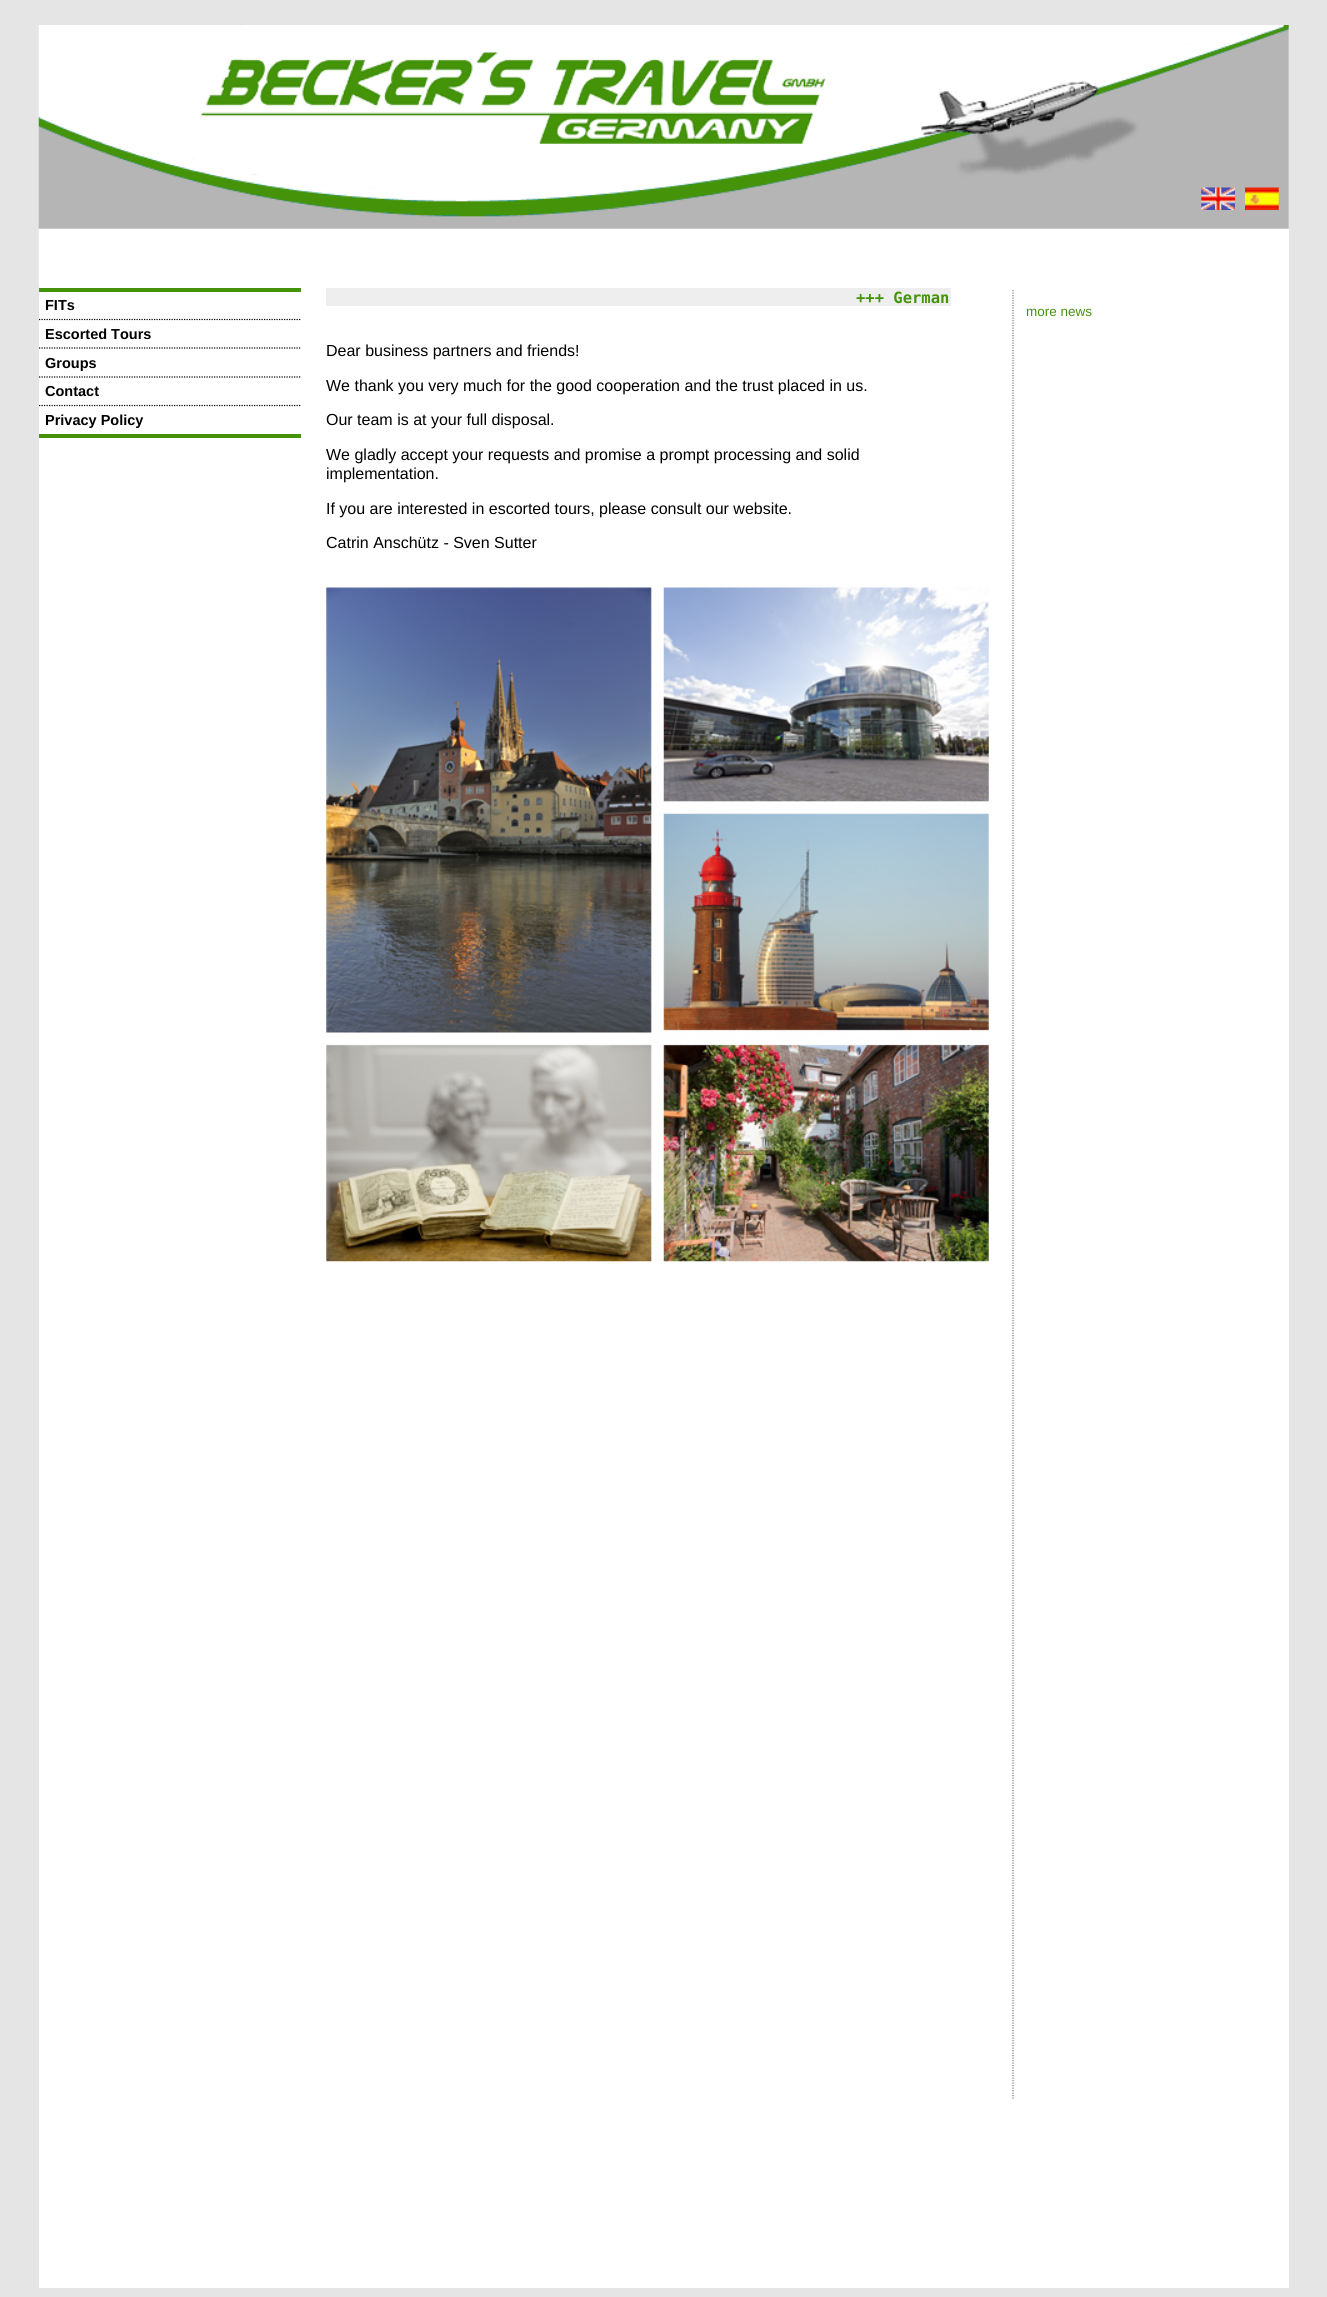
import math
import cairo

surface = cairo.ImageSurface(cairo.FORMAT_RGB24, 1327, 2297)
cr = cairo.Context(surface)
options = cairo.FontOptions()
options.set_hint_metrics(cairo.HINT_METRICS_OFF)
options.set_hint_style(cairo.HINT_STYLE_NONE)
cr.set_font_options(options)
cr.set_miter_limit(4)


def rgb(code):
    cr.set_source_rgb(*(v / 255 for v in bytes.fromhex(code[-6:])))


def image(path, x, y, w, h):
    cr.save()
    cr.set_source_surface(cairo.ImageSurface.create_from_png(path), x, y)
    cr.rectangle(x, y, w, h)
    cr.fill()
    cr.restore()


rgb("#e5e5e5")
cr.paint()
rgb("#ffffff")
cr.rectangle(39, 25, 1250, 2263)
cr.fill()
image("img/1.png", 38, 25, 1251, 259)
image("img/2.png", 1201, 187, 34, 23)
image("img/3.png", 1245, 187, 34, 23)
rgb("#449309")
cr.rectangle(39, 288, 262, 4)
cr.fill()
cr.rectangle(39, 434, 262, 4)
cr.fill()
cr.new_path()
cr.move_to(39, 319.5)
cr.line_to(301, 319.5)
rgb("#000000")
cr.set_line_width(1.2)
cr.set_dash([1.25, 1.25])
cr.stroke()
cr.new_path()
cr.move_to(39, 348)
cr.line_to(301, 348)
cr.stroke()
cr.new_path()
cr.move_to(39, 377)
cr.line_to(301, 377)
cr.stroke()
cr.new_path()
cr.move_to(39, 405.5)
cr.line_to(301, 405.5)
cr.stroke()
rgb("#eeeeee")
cr.rectangle(326, 288, 625, 18)
cr.fill()
image("img/4.png", 326, 587, 663, 675)
cr.new_path()
cr.move_to(1013, 290)
cr.line_to(1013, 2100)
rgb("#808080")
cr.stroke()
cr.select_font_face("Liberation Sans", cairo.FONT_SLANT_NORMAL, cairo.FONT_WEIGHT_BOLD)
cr.set_font_size(14.5)
rgb("#000000")
for x, y, s in [
    (45, 310, "FITs"),
    (45, 339, "Escorted Tours"),
    (45, 368, "Groups"),
    (45, 396, "Contact"),
    (45, 425, "Privacy Policy"),
]:
    cr.move_to(x, y)
    cr.show_text(s)
cr.select_font_face("DejaVu Sans Mono", cairo.FONT_SLANT_NORMAL, cairo.FONT_WEIGHT_BOLD)
cr.set_font_size(15.5)
rgb("#449309")
cr.move_to(856, 303)
cr.show_text("+++ German")
cr.select_font_face("Liberation Sans")
cr.set_font_size(16)
rgb("#000000")
for x, y, s in [
    (326, 356, "Dear business partners and friends!"),
    (326, 391, "We thank you very much for the good cooperation and the trust placed in us."),
    (326, 425, "Our team is at your full disposal."),
    (326, 460, "We gladly accept your requests and promise a prompt processing and solid"),
    (326, 479, "implementation."),
    (326, 514, "If you are interested in escorted tours, please consult our website."),
    (326, 548, "Catrin Anschütz - Sven Sutter"),
]:
    cr.move_to(x, y)
    cr.show_text(s)
cr.set_font_size(13.5)
rgb("#449309")
cr.move_to(1026, 316)
cr.show_text("more news")
surface.write_to_png("page.png")
